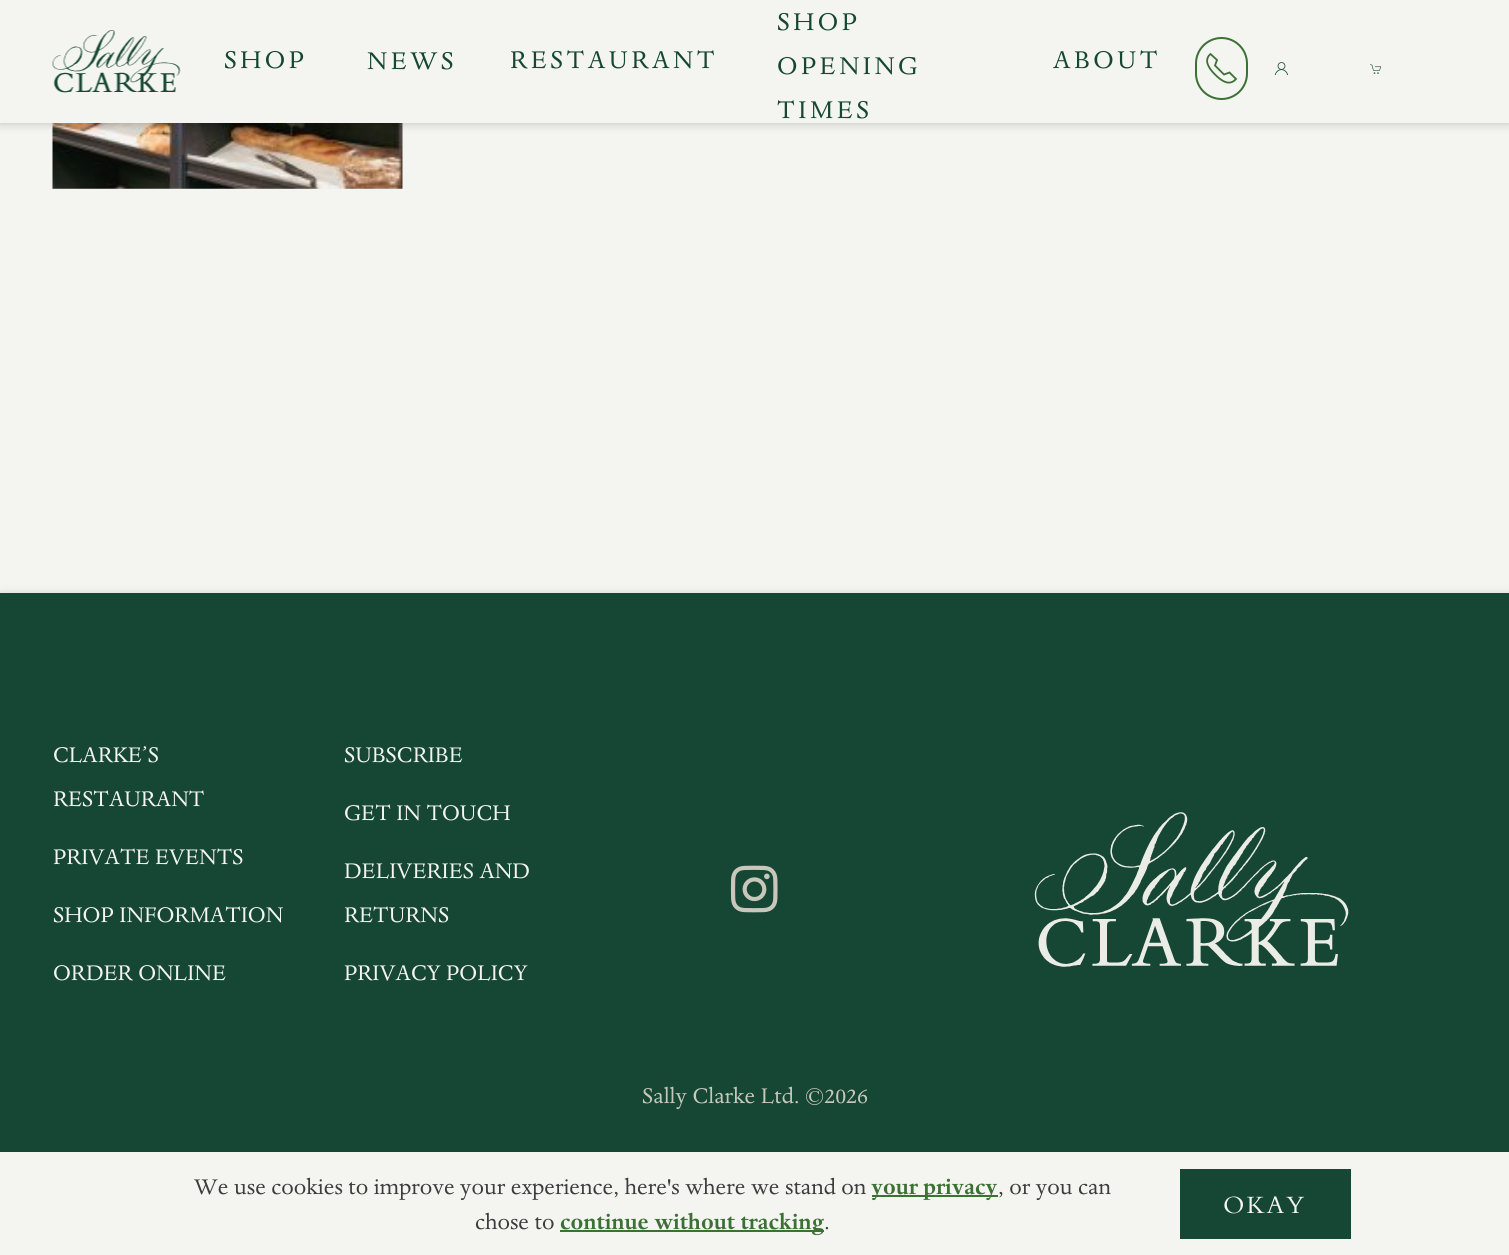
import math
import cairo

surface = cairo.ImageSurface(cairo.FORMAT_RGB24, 1509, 1255)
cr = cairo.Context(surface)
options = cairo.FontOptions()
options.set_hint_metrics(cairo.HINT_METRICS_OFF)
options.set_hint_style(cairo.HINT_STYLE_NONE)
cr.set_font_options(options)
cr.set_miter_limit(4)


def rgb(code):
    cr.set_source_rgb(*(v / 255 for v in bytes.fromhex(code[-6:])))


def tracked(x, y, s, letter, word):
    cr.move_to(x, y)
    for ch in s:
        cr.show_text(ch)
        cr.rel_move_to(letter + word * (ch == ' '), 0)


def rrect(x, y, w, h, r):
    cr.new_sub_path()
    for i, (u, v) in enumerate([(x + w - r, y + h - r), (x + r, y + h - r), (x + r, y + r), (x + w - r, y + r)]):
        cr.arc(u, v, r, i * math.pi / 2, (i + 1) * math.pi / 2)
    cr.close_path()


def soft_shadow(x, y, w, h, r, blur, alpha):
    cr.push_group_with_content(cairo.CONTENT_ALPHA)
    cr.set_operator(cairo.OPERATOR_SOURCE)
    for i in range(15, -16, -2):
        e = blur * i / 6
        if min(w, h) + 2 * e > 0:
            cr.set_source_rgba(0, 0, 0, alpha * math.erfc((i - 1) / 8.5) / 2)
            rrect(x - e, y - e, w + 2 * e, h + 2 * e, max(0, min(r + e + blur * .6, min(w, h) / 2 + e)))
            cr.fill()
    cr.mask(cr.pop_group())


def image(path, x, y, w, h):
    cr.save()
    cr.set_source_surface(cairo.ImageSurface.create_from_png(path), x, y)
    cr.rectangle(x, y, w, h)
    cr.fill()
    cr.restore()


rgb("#f4f4f0")
cr.paint()
image("img/4.png", 52, 123, 351, 66)
rgb("#000000")
soft_shadow(0, 2, 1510, 122, 0, 4.5, 0.2)
rgb("#f4f4f0")
cr.rectangle(0, 0, 1509, 123)
cr.fill()
image("img/1.png", 52, 30, 129, 63)
rrect(1196, 38, 51, 61, 25.5)
rgb("#3c7134")
cr.stroke()
cr.new_path()
cr.move_to(1215, 74.5)
cr.curve_to(1220.5, 80, 1229, 87, 1236, 79)
cr.line_to(1229.5, 72.5)
cr.line_to(1224, 74.5)
cr.line_to(1215, 65.5)
cr.line_to(1217, 60)
cr.line_to(1210.5, 54)
cr.curve_to(1203, 60.5, 1209.5, 69, 1215, 74.5)
cr.set_line_width(1.8)
cr.stroke()
image("img/2.png", 1274, 62, 14, 13)
image("img/3.png", 1370, 64, 12, 10)
rgb("#000000")
soft_shadow(0, 595, 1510, 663, 0, 4.5, 0.2)
rgb("#154734")
cr.rectangle(0, 593, 1509, 559)
cr.fill()
image("img/5.png", 730, 865, 48, 48)
image("img/6.png", 1034, 812, 315, 155)
for x, y, w, h, color in [
    (0, 1152, 1509, 103, "#f4f4f0"),
    (872, 1195, 126, 2, "#3c7134"),
    (560, 1230, 264, 2, "#3c7134"),
    (1180, 1169, 171, 70, "#154734"),
]:
    rgb(color)
    cr.rectangle(x, y, w, h)
    cr.fill()
cr.select_font_face("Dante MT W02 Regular")
cr.set_font_size(28)
for x, y, s in [
    (224, 68, "SHOP"),
    (367, 69, "NEWS"),
    (510, 68, "RESTAURANT"),
    (777, 30, "SHOP"),
    (777, 74, "OPENING"),
    (777, 118, "TIMES"),
    (1053, 68, "ABOUT"),
]:
    tracked(x, y, s, 3.5, 0)
cr.set_font_size(24.5)
rgb("#f4f4f0")
for x, y, s in [
    (53, 762, "CLARKE’S"),
    (53, 806, "RESTAURANT"),
    (53, 864, "PRIVATE EVENTS"),
    (53, 922, "SHOP INFORMATION"),
    (53, 980, "ORDER ONLINE"),
    (344, 762, "SUBSCRIBE"),
    (344, 820, "GET IN TOUCH"),
    (344, 878, "DELIVERIES AND"),
    (344, 922, "RETURNS"),
    (344, 980, "PRIVACY POLICY"),
]:
    cr.move_to(x, y)
    cr.show_text(s)
rgb("#c9c7bc")
cr.move_to(642, 1103)
cr.show_text("Sally Clarke Ltd. ©2026")
rgb("#3c3c3c")
cr.move_to(194, 1194)
cr.show_text("We use cookies to improve your experience, here's where we stand on")
cr.select_font_face("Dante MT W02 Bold", cairo.FONT_SLANT_NORMAL, cairo.FONT_WEIGHT_BOLD)
rgb("#3c7134")
cr.move_to(871, 1194)
cr.show_text("your privacy")
cr.select_font_face("Dante MT W02 Regular")
rgb("#3c3c3c")
cr.move_to(998, 1194)
cr.show_text(", or you can")
cr.move_to(475, 1229)
cr.show_text("chose to")
cr.select_font_face("Dante MT W02 Bold", cairo.FONT_SLANT_NORMAL, cairo.FONT_WEIGHT_BOLD)
rgb("#3c7134")
cr.move_to(560, 1229)
cr.show_text("continue without tracking")
cr.select_font_face("Dante MT W02 Regular")
rgb("#3c3c3c")
cr.move_to(824, 1229)
cr.show_text(".")
cr.select_font_face("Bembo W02")
cr.set_font_size(26)
rgb("#f4f4f0")
tracked(1223, 1213, "OKAY", 2, 0)
surface.write_to_png("page.png")
